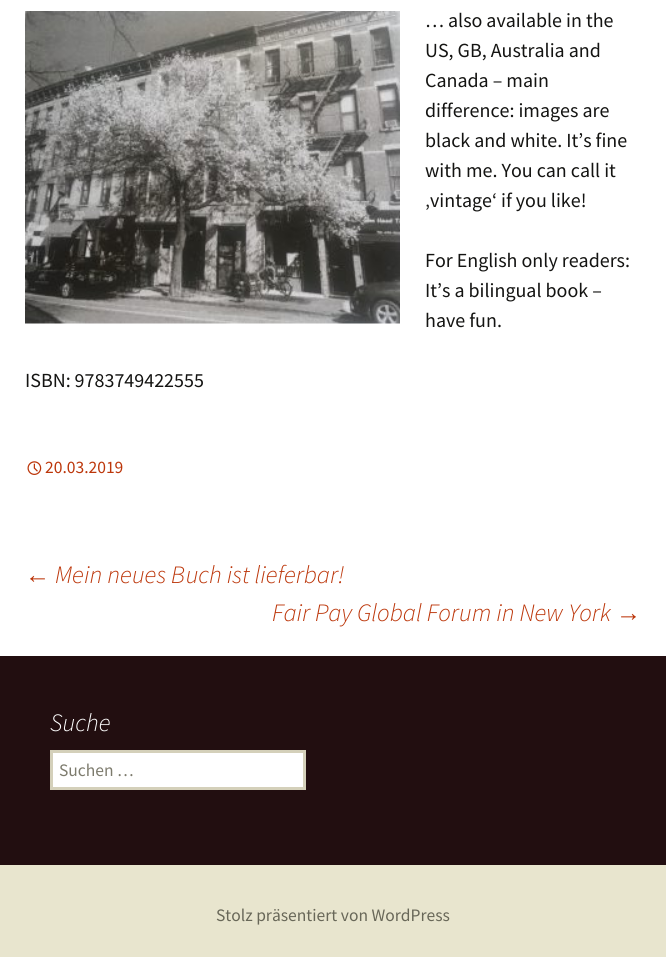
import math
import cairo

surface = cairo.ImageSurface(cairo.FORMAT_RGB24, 666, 957)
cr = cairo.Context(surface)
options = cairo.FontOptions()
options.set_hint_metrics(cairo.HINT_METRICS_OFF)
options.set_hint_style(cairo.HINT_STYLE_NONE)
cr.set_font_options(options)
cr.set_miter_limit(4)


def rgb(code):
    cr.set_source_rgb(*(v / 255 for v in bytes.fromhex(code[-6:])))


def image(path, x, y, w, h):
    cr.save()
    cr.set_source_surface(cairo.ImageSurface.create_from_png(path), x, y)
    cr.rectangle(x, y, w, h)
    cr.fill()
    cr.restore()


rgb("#ffffff")
cr.paint()
image("img/1.png", 25, 11, 375, 313)
image("img/2.png", 27, 461, 15, 14)
rgb("#e8e5ce")
cr.rectangle(0, 865, 666, 92)
cr.fill()
rgb("#220e10")
cr.rectangle(0, 656, 666, 209)
cr.fill()
rgb("#ffffff")
cr.rectangle(51.5, 751.5, 253, 37)
cr.fill_preserve()
rgb("#d4d0ba")
cr.set_line_width(3)
cr.stroke()
cr.select_font_face("Source Sans Pro")
cr.set_font_size(20)
rgb("#141412")
for x, y, s in [
    (425, 27, "… also available in the"),
    (425, 57, "US, GB, Australia and"),
    (425, 87, "Canada – main"),
    (425, 117, "difference: images are"),
    (425, 147, "black and white. It’s fine"),
    (425, 177, "with me. You can call it"),
    (425, 207, "‚vintage‘ if you like!"),
    (425, 267, "For English only readers:"),
    (425, 297, "It’s a bilingual book –"),
    (425, 327, "have fun."),
    (25, 387, "ISBN: 9783749422555"),
]:
    cr.move_to(x, y)
    cr.show_text(s)
cr.set_font_size(17.5)
rgb("#bc360a")
cr.move_to(45, 473)
cr.show_text("20.03.2019")
cr.select_font_face("Liberation Sans", cairo.FONT_SLANT_ITALIC)
cr.set_font_size(25)
cr.move_to(25, 583)
cr.show_text("←")
cr.select_font_face("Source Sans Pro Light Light", cairo.FONT_SLANT_ITALIC)
cr.move_to(55, 583)
cr.show_text("Mein neues Buch ist lieferbar!")
cr.move_to(272, 621)
cr.show_text("Fair Pay Global Forum in New York")
cr.select_font_face("Liberation Sans", cairo.FONT_SLANT_ITALIC)
cr.move_to(616, 621)
cr.show_text("→")
cr.select_font_face("Source Sans Pro Light Light", cairo.FONT_SLANT_ITALIC)
rgb("#ffffff")
cr.move_to(50, 731)
cr.show_text("Suche")
cr.select_font_face("Source Sans Pro")
cr.set_font_size(17.5)
rgb("#7d7b6d")
cr.move_to(59, 776)
cr.show_text("Suchen …")
rgb("#686758")
cr.move_to(216, 921)
cr.show_text("Stolz präsentiert von WordPress")
surface.write_to_png("page.png")
